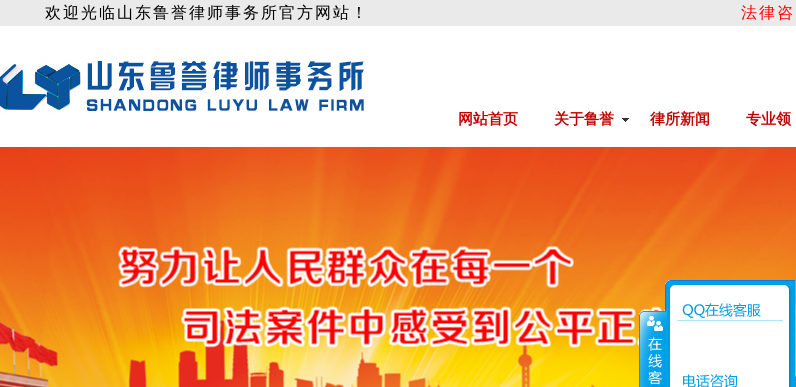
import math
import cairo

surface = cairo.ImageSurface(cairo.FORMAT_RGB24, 796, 387)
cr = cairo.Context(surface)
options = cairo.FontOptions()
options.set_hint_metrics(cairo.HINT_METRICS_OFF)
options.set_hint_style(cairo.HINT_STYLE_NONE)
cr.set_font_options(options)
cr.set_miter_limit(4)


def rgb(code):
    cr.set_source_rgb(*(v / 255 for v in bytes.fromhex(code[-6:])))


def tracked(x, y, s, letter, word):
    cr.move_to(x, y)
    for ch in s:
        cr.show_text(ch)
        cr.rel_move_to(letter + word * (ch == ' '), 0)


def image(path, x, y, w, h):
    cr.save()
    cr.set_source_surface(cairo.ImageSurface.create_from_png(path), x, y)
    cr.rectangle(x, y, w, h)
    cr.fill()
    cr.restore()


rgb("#ffffff")
cr.paint()
rgb("#eaeaea")
cr.rectangle(0, 0, 796, 26)
cr.fill()
image("img/1.png", 0, 58, 364, 56)
image("img/2.png", 622, 118, 7, 4)
image("img/3.png", 0, 147, 796, 240)
image("img/6.png", 665, 290, 130, 97)
image("img/4.png", 639, 311, 28, 76)
image("img/5.png", 665, 280, 130, 10)
rgb("#ace5f9")
cr.rectangle(677, 320, 106, 1)
cr.fill()
image("img/7.png", 682, 303, 79, 15)
image("img/8.png", 683, 374, 55, 13)
cr.select_font_face("WenQuanYi Zen Hei Medium")
cr.set_font_size(16)
rgb("#000000")
tracked(45, 18, "欢迎光临山东鲁誉律师事务所官方网站！", 2, 0)
rgb("#ff0000")
tracked(741, 18, "法律咨", 2, 0)
cr.select_font_face("WenQuanYi Zen Hei", cairo.FONT_SLANT_NORMAL, cairo.FONT_WEIGHT_BOLD)
cr.set_font_size(15)
rgb("#c40000")
for x, y, s in [
    (458, 124, "网站首页"),
    (554, 124, "关于鲁誉"),
    (650, 124, "律所新闻"),
    (746, 124, "专业领"),
]:
    cr.move_to(x, y)
    cr.show_text(s)
surface.write_to_png("page.png")
